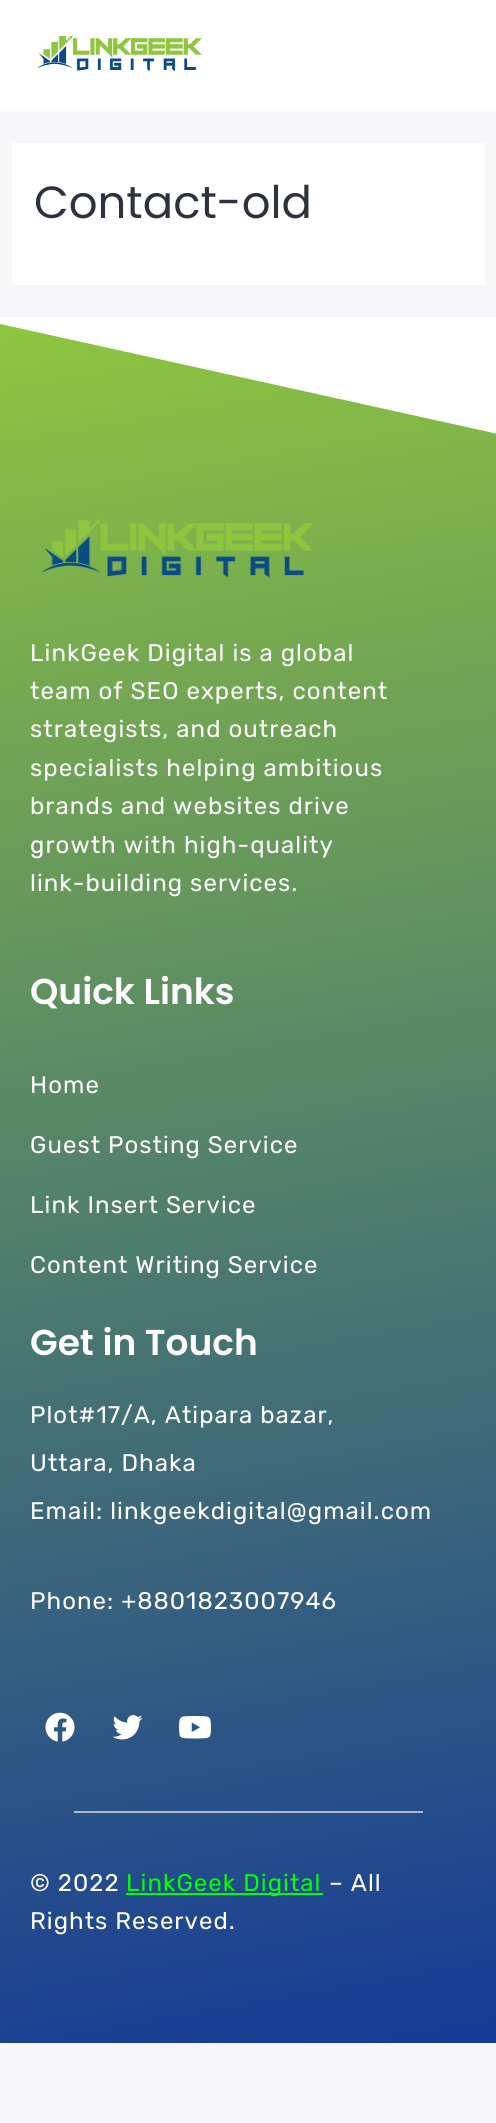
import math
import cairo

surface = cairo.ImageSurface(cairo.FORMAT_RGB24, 496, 2123)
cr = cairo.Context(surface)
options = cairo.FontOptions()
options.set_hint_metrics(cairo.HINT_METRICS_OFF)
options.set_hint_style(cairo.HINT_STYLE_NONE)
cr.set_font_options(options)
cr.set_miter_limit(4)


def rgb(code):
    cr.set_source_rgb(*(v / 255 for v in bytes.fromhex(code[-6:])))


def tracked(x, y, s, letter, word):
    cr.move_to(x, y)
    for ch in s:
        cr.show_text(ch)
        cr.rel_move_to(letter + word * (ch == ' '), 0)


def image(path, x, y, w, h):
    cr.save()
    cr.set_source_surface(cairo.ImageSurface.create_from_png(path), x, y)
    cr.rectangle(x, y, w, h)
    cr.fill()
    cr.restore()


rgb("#f7f7fa")
cr.paint()
rgb("#ffffff")
cr.rectangle(0, 0, 496, 111)
cr.fill()
image("img/1.png", 37, 35, 165, 37)
cr.rectangle(12, 143, 473, 142)
cr.fill()
gradient = cairo.LinearGradient(93, 302, 403, 2059)
gradient.add_color_stop_rgba(0, 0.557, 0.776, 0.247, 1)
gradient.add_color_stop_rgba(1, 0.082, 0.227, 0.592, 1)
cr.set_source(gradient)
cr.rectangle(0, 324, 496, 1719)
cr.fill()
cr.save()
cr.rectangle(0, 317, 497, 117)
cr.clip()
rgb("#ffffff")
cr.new_path()
cr.move_to(0, 324)
cr.line_to(0, 316)
cr.line_to(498, 316)
cr.line_to(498, 434)
cr.close_path()
cr.fill()
cr.restore()
image("img/2.png", 41, 519, 273, 59)
image("img/3.png", 45, 1712, 30, 30)
image("img/4.png", 112, 1715, 31, 25)
image("img/5.png", 179, 1716, 32, 23)
rgb("#aeb7cc")
cr.rectangle(74, 1811, 349, 2)
cr.fill()
rgb("#00ff00")
cr.rectangle(126, 1893, 197, 2)
cr.fill()
cr.select_font_face("Poppins")
cr.set_font_size(45)
rgb("#2e323e")
cr.move_to(34, 218)
cr.show_text("Contact-old")
cr.select_font_face("Rubik")
cr.set_font_size(24)
rgb("#ffffff")
for x, y, s in [
    (30, 661, "LinkGeek Digital is a global"),
    (30, 699, "team of SEO experts, content"),
    (30, 737, "strategists, and outreach"),
    (30, 776, "specialists helping ambitious"),
    (30, 814, "brands and websites drive"),
    (30, 853, "growth with high-quality"),
    (30, 891, "link-building services."),
]:
    tracked(x, y, s, 1.05, 0)
cr.select_font_face("Poppins SemiBold")
cr.set_font_size(36)
cr.move_to(30, 1004)
cr.show_text("Quick Links")
cr.select_font_face("Rubik")
cr.set_font_size(24)
for x, y, s in [
    (30, 1093, "Home"),
    (30, 1153, "Guest Posting Service"),
    (30, 1213, "Link Insert Service"),
    (30, 1273, "Content Writing Service"),
]:
    tracked(x, y, s, 1.05, 0)
cr.select_font_face("Poppins SemiBold")
cr.set_font_size(36)
cr.move_to(30, 1355)
cr.show_text("Get in Touch")
cr.select_font_face("Rubik")
cr.set_font_size(24)
for x, y, s in [
    (30, 1423, "Plot#17/A, Atipara bazar,"),
    (30, 1471, "Uttara, Dhaka"),
    (30, 1519, "Email: linkgeekdigital@gmail.com"),
    (30, 1609, "Phone: +8801823007946"),
    (30, 1891, "© 2022"),
]:
    tracked(x, y, s, 1.05, 0)
rgb("#00ff00")
tracked(126, 1891, "LinkGeek Digital", 1.05, 0)
rgb("#ffffff")
tracked(329, 1891, "– All", 1.05, 0)
tracked(30, 1929, "Rights Reserved.", 1.05, 0)
surface.write_to_png("page.png")
